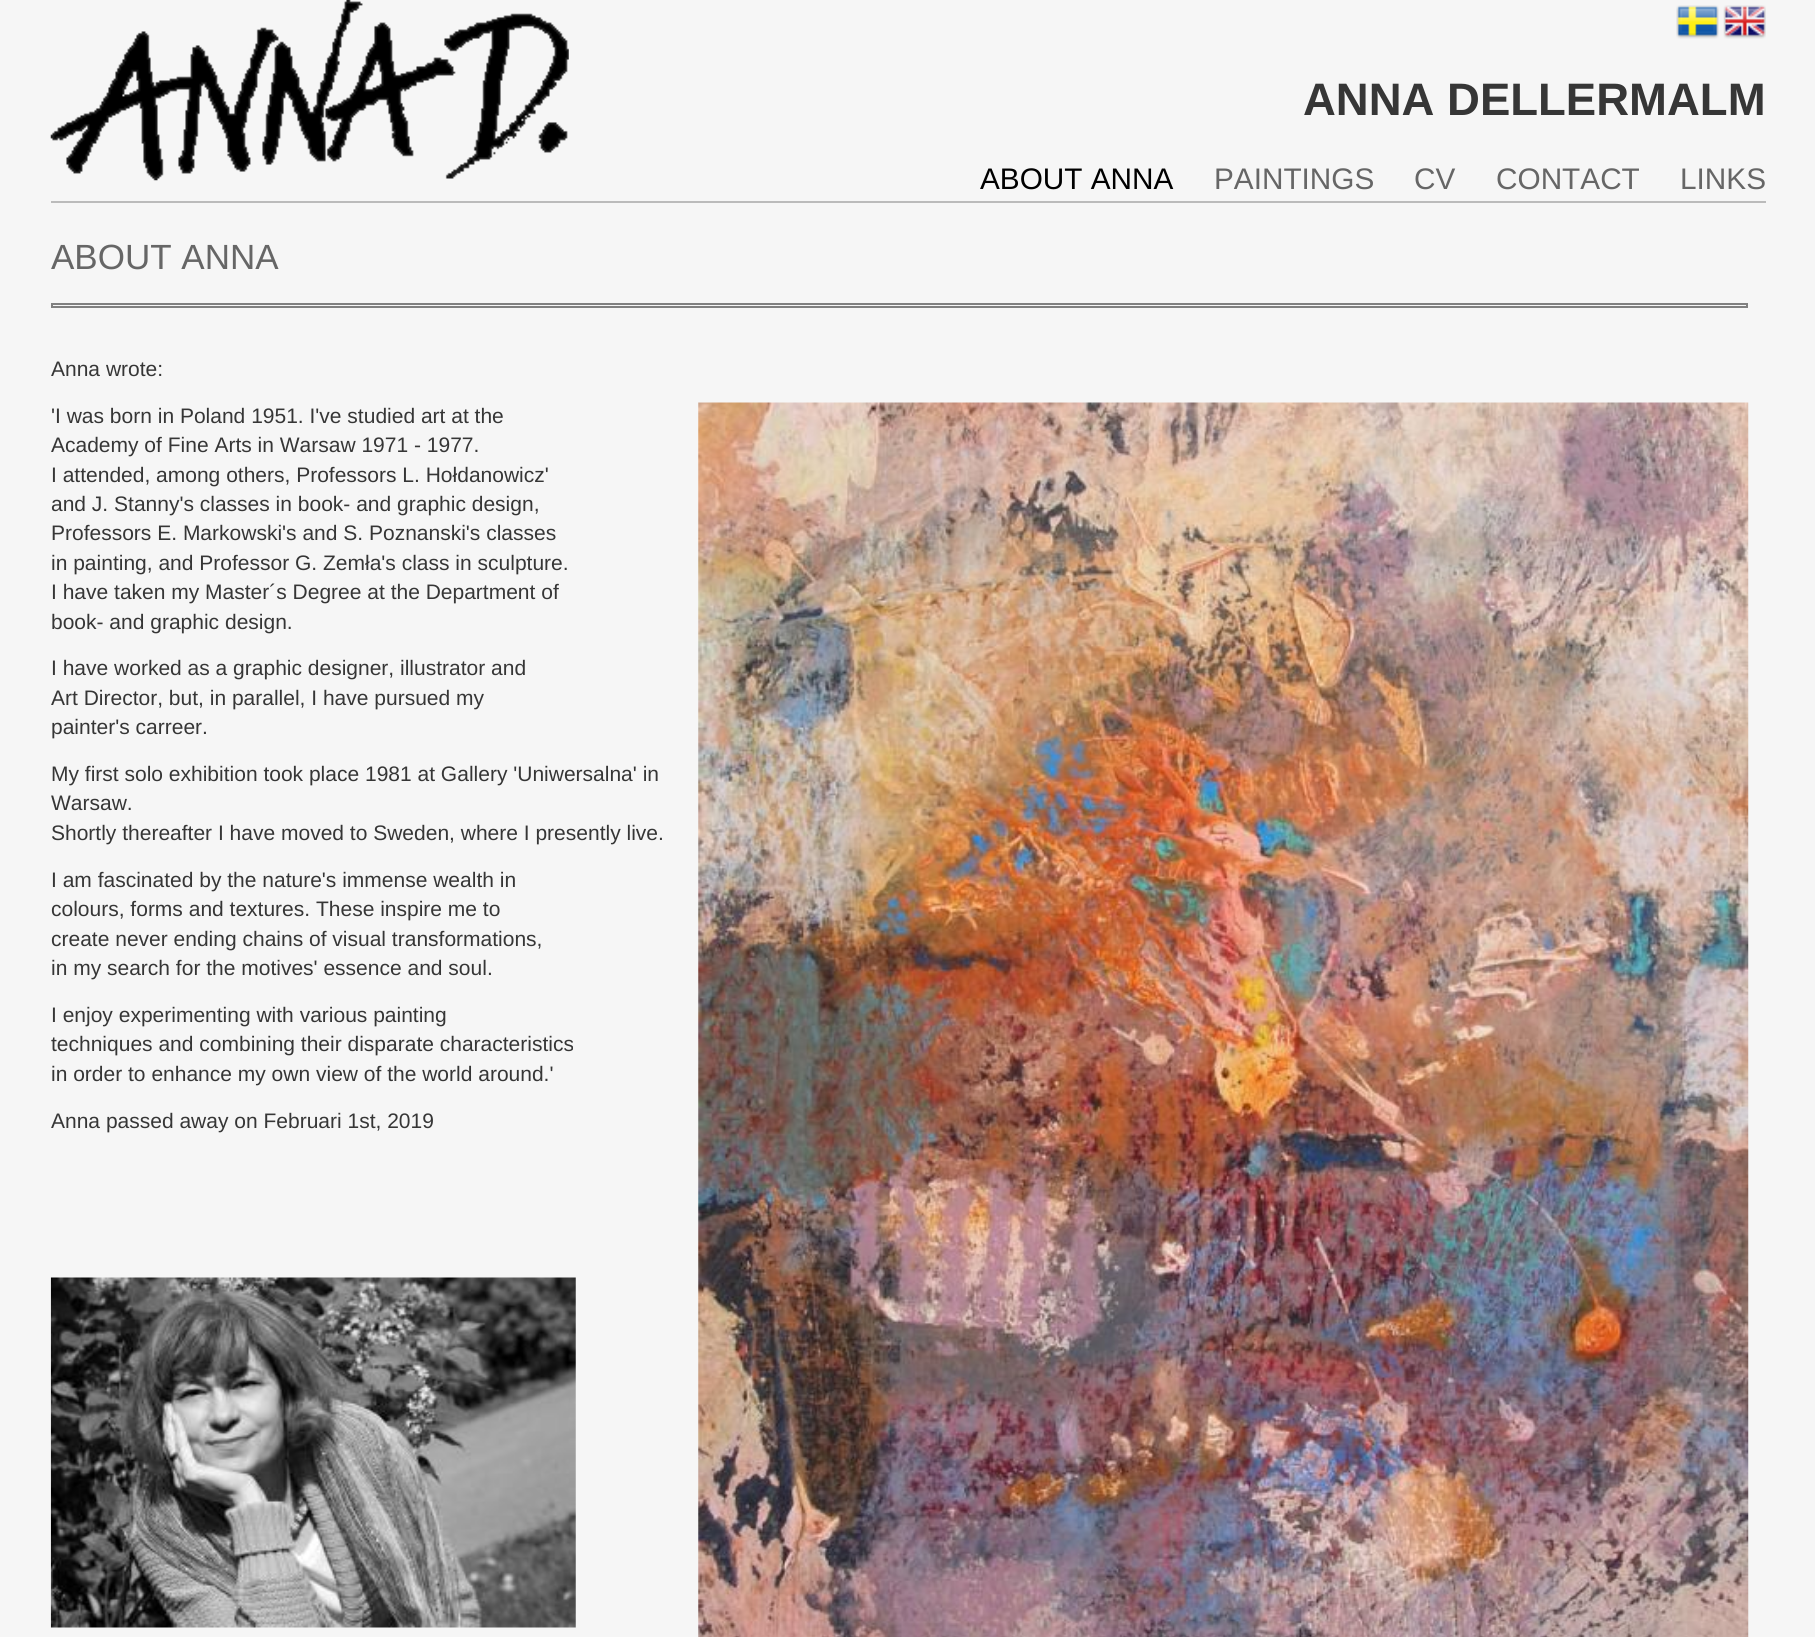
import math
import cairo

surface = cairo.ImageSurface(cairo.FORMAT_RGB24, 1815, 1637)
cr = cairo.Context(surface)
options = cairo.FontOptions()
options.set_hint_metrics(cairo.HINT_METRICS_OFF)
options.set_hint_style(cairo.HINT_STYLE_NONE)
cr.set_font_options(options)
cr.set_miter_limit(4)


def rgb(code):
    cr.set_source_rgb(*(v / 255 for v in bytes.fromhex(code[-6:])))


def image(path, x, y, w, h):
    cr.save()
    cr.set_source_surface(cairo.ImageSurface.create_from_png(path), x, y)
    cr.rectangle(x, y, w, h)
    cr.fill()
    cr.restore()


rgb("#f6f6f6")
cr.paint()
rgb("#bbbbbb")
cr.rectangle(51, 201, 1715, 2)
cr.fill()
image("img/1.png", 50, 0, 519, 181)
image("img/2.png", 1676, 5, 43, 34)
image("img/3.png", 1723, 5, 43, 34)
cr.rectangle(52, 304, 1695, 3)
rgb("#808080")
cr.stroke()
image("img/4.png", 698, 402, 1051, 1235)
image("img/5.png", 50, 1277, 526, 351)
cr.select_font_face("Liberation Sans", cairo.FONT_SLANT_NORMAL, cairo.FONT_WEIGHT_BOLD)
cr.set_font_size(45.5)
rgb("#363636")
cr.move_to(1303, 115)
cr.show_text("ANNA DELLERMALM")
cr.select_font_face("Liberation Sans")
cr.set_font_size(29.75)
rgb("#000000")
cr.move_to(980, 189)
cr.show_text("ABOUT ANNA")
rgb("#666666")
for x, y, s in [
    (1214, 189, "PAINTINGS"),
    (1414, 189, "CV"),
    (1496, 189, "CONTACT"),
    (1680, 189, "LINKS"),
]:
    cr.move_to(x, y)
    cr.show_text(s)
cr.set_font_size(35)
cr.move_to(51, 269)
cr.show_text("ABOUT ANNA")
cr.set_font_size(21)
rgb("#363636")
for x, y, s in [
    (51, 376, "Anna wrote:"),
    (51, 423, "'I was born in Poland 1951. I've studied art at the"),
    (51, 452, "Academy of Fine Arts in Warsaw 1971 - 1977."),
    (51, 482, "I attended, among others, Professors L. Hołdanowicz'"),
    (51, 511, "and J. Stanny's classes in book- and graphic design,"),
    (51, 540, "Professors E. Markowski's and S. Poznanski's classes"),
    (51, 570, "in painting, and Professor G. Zemła's class in sculpture."),
    (51, 599, "I have taken my Master´s Degree at the Department of"),
    (51, 629, "book- and graphic design."),
    (51, 675, "I have worked as a graphic designer, illustrator and"),
    (51, 705, "Art Director, but, in parallel, I have pursued my"),
    (51, 734, "painter's carreer."),
    (51, 781, "My first solo exhibition took place 1981 at Gallery 'Uniwersalna' in"),
    (51, 810, "Warsaw."),
    (51, 840, "Shortly thereafter I have moved to Sweden, where I presently live."),
    (51, 887, "I am fascinated by the nature's immense wealth in"),
    (51, 916, "colours, forms and textures. These inspire me to"),
    (51, 946, "create never ending chains of visual transformations,"),
    (51, 975, "in my search for the motives' essence and soul."),
    (51, 1022, "I enjoy experimenting with various painting"),
    (51, 1051, "techniques and combining their disparate characteristics"),
    (51, 1081, "in order to enhance my own view of the world around.'"),
    (51, 1128, "Anna passed away on Februari 1st, 2019"),
]:
    cr.move_to(x, y)
    cr.show_text(s)
surface.write_to_png("page.png")
